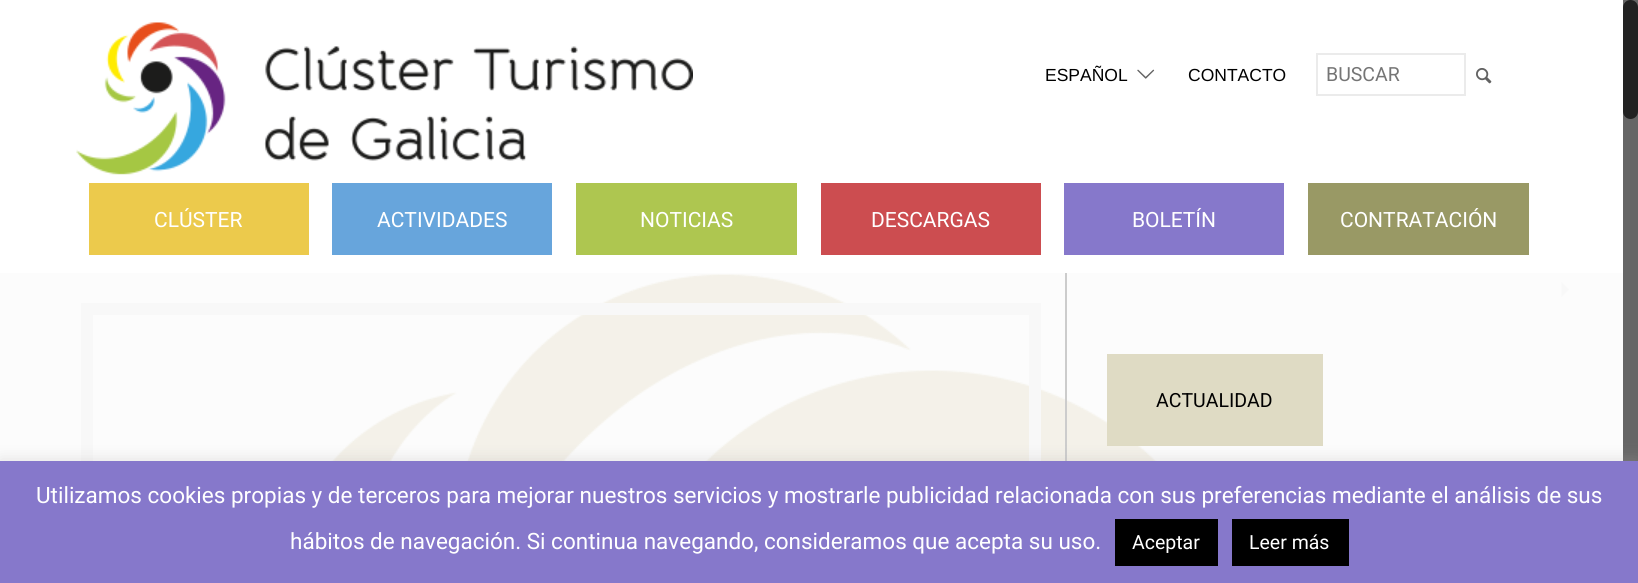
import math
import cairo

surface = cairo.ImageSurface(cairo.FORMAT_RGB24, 1638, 583)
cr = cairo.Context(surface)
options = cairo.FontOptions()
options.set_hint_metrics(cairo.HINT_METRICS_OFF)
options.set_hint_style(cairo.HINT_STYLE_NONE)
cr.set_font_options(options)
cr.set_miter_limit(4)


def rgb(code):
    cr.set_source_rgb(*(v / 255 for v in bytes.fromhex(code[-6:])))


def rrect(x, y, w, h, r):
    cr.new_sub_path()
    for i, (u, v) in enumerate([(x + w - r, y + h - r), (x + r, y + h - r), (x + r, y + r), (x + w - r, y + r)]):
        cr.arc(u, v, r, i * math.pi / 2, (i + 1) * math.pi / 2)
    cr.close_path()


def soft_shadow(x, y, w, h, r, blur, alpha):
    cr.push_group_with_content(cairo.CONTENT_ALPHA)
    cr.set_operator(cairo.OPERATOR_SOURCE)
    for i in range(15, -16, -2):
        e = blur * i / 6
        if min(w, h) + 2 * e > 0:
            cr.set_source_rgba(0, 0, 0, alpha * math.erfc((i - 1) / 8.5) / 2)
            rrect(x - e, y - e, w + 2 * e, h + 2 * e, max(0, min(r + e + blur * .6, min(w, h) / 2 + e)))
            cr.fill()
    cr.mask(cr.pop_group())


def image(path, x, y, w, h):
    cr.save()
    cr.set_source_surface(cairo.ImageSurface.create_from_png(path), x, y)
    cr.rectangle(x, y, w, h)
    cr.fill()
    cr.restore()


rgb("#fcfcfc")
cr.paint()
rgb("#ffffff")
cr.rectangle(0, 0, 1623, 273)
cr.fill()
image("img/1.png", 76, 22, 617, 153)
image("img/2.png", 1137, 69, 18, 10)
cr.rectangle(1317, 54, 148, 41)
rgb("#ebebeb")
cr.stroke()
image("img/3.png", 1476, 68, 16, 16)
for x, y, w, h, color in [
    (89, 183, 220, 72, "#ecca4c"),
    (332, 183, 220, 72, "#67a5dc"),
    (576, 183, 221, 72, "#aec650"),
    (821, 183, 220, 72, "#cc4d50"),
    (1064, 183, 220, 72, "#8678cb"),
    (1308, 183, 221, 72, "#999965"),
]:
    rgb(color)
    cr.rectangle(x, y, w, h)
    cr.fill()
image("img/4.png", 331, 274, 826, 187)
rgb("#f8f8f8")
cr.new_path()
cr.move_to(1561.5, 297)
cr.line_to(1561.5, 282)
cr.line_to(1569, 289.5)
cr.close_path()
cr.fill()
cr.rectangle(87, 309, 948, 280)
cr.set_line_width(12)
cr.stroke()
for x, y, w, h, color in [
    (1065, 273, 2, 188, "#cccccc"),
    (1107, 354, 216, 92, "#dfdbc4"),
    (1623, 0, 15, 461, "#666666"),
]:
    rgb(color)
    cr.rectangle(x, y, w, h)
    cr.fill()
rgb("#acabab")
soft_shadow(0, 459, 1638, 123, 0, 7.5, 0.3)
for x, y, w, h, color in [
    (0, 461, 1638, 122, "#8678cb"),
    (1115, 519, 103, 47, "#000000"),
    (1232, 519, 117, 47, "#000000"),
]:
    rgb(color)
    cr.rectangle(x, y, w, h)
    cr.fill()
rgb("#222222")
rrect(1623, 0, 15, 119, 7.5)
cr.fill()
cr.select_font_face("Liberation Sans")
cr.set_font_size(17.5)
rgb("#000000")
cr.move_to(1045, 81)
cr.show_text("ESPAÑOL")
cr.move_to(1188, 81)
cr.show_text("CONTACTO")
cr.select_font_face("Roboto")
cr.set_font_size(19.5)
rgb("#757575")
cr.move_to(1326, 81)
cr.show_text("BUSCAR")
cr.set_font_size(21)
rgb("#ffffff")
for x, y, s in [
    (154, 227, "CLÚSTER"),
    (377, 227, "ACTIVIDADES"),
    (640, 227, "NOTICIAS"),
    (871, 227, "DESCARGAS"),
    (1132, 227, "BOLETÍN"),
    (1340, 227, "CONTRATACIÓN"),
]:
    cr.move_to(x, y)
    cr.show_text(s)
cr.set_font_size(19.5)
rgb("#000000")
cr.move_to(1156, 407)
cr.show_text("ACTUALIDAD")
cr.set_font_size(22.5)
rgb("#ffffff")
cr.move_to(36, 503)
cr.show_text("Utilizamos cookies propias y de terceros para mejorar nuestros servicios y mostrarle publicidad relacionada con sus preferencias mediante el análisis de sus")
cr.move_to(290, 549)
cr.show_text("hábitos de navegación. Si continua navegando, consideramos que acepta su uso.")
cr.set_font_size(19.5)
cr.move_to(1132, 549)
cr.show_text("Aceptar")
cr.move_to(1249, 549)
cr.show_text("Leer más")
surface.write_to_png("page.png")
